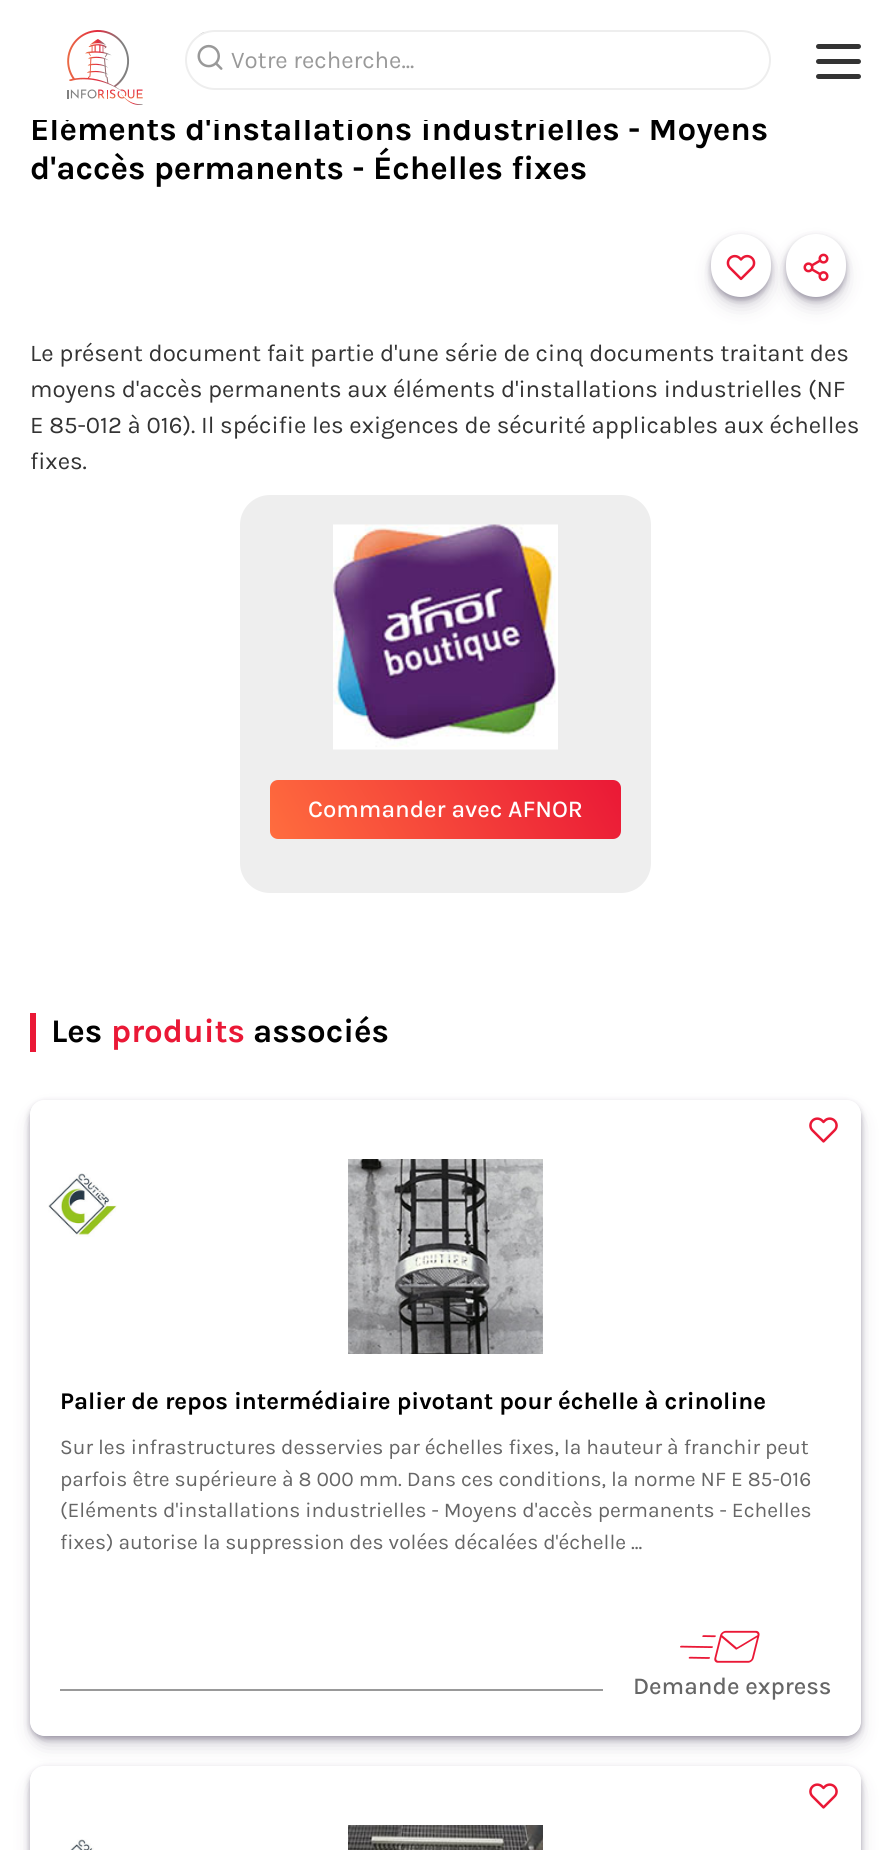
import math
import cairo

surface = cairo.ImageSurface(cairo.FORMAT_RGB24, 891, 1850)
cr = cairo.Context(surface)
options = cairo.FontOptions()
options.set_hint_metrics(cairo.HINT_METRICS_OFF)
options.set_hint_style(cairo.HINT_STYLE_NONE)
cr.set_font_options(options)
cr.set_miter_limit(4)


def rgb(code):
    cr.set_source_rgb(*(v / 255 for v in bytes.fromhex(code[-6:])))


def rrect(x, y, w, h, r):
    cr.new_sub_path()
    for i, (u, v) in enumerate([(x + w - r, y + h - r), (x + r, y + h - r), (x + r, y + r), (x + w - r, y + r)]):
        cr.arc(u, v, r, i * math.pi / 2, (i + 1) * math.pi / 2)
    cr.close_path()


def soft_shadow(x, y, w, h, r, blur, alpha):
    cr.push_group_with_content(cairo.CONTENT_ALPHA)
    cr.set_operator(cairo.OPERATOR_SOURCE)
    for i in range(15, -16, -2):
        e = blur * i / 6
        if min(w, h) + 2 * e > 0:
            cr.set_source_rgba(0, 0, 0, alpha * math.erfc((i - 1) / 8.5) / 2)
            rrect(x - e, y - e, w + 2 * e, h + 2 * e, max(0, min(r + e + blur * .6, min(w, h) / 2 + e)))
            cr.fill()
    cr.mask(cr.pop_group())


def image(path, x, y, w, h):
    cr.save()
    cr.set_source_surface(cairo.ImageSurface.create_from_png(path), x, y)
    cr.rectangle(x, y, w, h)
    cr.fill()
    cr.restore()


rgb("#ffffff")
cr.paint()
image("img/1.png", 67, 30, 76, 75)
image("img/2.png", 197, 32, 13, 6)
rgb("#ffffff")
rrect(186, 31, 584, 58, 29)
cr.fill_preserve()
rgb("#eeeeee")
cr.stroke()
image("img/3.png", 197, 44, 26, 26)
rgb("#333333")
rrect(816, 44, 45, 5, 2.5)
cr.fill()
rrect(816, 59, 45, 5, 2.5)
cr.fill()
rrect(816, 74, 45, 5, 2.5)
cr.fill()
rgb("#2d2342")
soft_shadow(716, 249, 51, 54, 25.5, 10, 0.25)
soft_shadow(711, 237, 60, 63, 30, 3, 0.35)
rgb("#ffffff")
rrect(711, 234, 60, 63, 30)
cr.fill()
image("img/4.png", 726, 254, 30, 27)
rgb("#2d2342")
soft_shadow(791, 249, 51, 54, 25.5, 10, 0.25)
soft_shadow(786, 237, 60, 63, 30, 3, 0.35)
rgb("#ffffff")
rrect(786, 234, 60, 63, 30)
cr.fill()
image("img/5.png", 803, 253, 26, 29)
rgb("#eeeeee")
rrect(240, 495, 411, 398, 30)
cr.fill()
image("img/6.png", 333, 524, 225, 226)
gradient = cairo.LinearGradient(590, 726, 301, 893)
gradient.add_color_stop_rgba(0, 0.918, 0.094, 0.212, 1)
gradient.add_color_stop_rgba(1, 1, 0.427, 0.243, 1)
cr.set_source(gradient)
rrect(270, 780, 351, 59, 8)
cr.fill()
rgb("#ea1836")
cr.rectangle(30, 1013, 6, 39)
cr.fill()
cr.save()
cr.set_fill_rule(cairo.FILL_RULE_EVEN_ODD)
cr.new_path()
cr.move_to(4, 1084)
cr.line_to(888, 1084)
cr.line_to(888, 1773)
cr.line_to(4, 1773)
cr.close_path()
cr.move_to(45, 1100)
cr.line_to(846, 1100)
cr.curve_to(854.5, 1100, 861, 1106.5, 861, 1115)
cr.line_to(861, 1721)
cr.curve_to(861, 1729.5, 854.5, 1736, 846, 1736)
cr.line_to(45, 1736)
cr.curve_to(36.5, 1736, 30, 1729.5, 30, 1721)
cr.line_to(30, 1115)
cr.curve_to(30, 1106.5, 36.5, 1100, 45, 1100)
cr.close_path()
cr.clip()
rgb("#2d2342")
soft_shadow(35, 1115, 822, 627, 11, 10, 0.25)
cr.restore()
cr.save()
cr.set_fill_rule(cairo.FILL_RULE_EVEN_ODD)
cr.new_path()
cr.move_to(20, 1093)
cr.line_to(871, 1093)
cr.line_to(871, 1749)
cr.line_to(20, 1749)
cr.close_path()
cr.move_to(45, 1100)
cr.line_to(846, 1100)
cr.curve_to(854.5, 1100, 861, 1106.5, 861, 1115)
cr.line_to(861, 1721)
cr.curve_to(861, 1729.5, 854.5, 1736, 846, 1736)
cr.line_to(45, 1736)
cr.curve_to(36.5, 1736, 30, 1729.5, 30, 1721)
cr.line_to(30, 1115)
cr.curve_to(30, 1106.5, 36.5, 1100, 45, 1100)
cr.close_path()
cr.clip()
rgb("#2d2342")
soft_shadow(30, 1103, 831, 636, 15, 3, 0.35)
cr.restore()
image("img/7.png", 809, 1117, 29, 26)
image("img/8.png", 48, 1173, 69, 64)
image("img/9.png", 348, 1159, 195, 195)
rgb("#999999")
cr.rectangle(60, 1689, 543, 2)
cr.fill()
image("img/11.png", 714, 1630, 46, 33)
image("img/10.png", 680, 1635, 36, 24)
cr.save()
cr.set_fill_rule(cairo.FILL_RULE_EVEN_ODD)
cr.new_path()
cr.move_to(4, 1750)
cr.line_to(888, 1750)
cr.line_to(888, 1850)
cr.line_to(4, 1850)
cr.close_path()
cr.move_to(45, 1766)
cr.line_to(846, 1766)
cr.curve_to(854.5, 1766, 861, 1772.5, 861, 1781)
cr.line_to(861, 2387)
cr.curve_to(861, 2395.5, 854.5, 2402, 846, 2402)
cr.line_to(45, 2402)
cr.curve_to(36.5, 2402, 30, 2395.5, 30, 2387)
cr.line_to(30, 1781)
cr.curve_to(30, 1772.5, 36.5, 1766, 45, 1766)
cr.close_path()
cr.clip()
rgb("#2d2342")
soft_shadow(35, 1781, 822, 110, 11, 10, 0.25)
cr.restore()
cr.save()
cr.set_fill_rule(cairo.FILL_RULE_EVEN_ODD)
cr.new_path()
cr.move_to(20, 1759)
cr.line_to(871, 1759)
cr.line_to(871, 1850)
cr.line_to(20, 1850)
cr.close_path()
cr.move_to(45, 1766)
cr.line_to(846, 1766)
cr.curve_to(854.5, 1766, 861, 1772.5, 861, 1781)
cr.line_to(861, 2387)
cr.curve_to(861, 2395.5, 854.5, 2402, 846, 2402)
cr.line_to(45, 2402)
cr.curve_to(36.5, 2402, 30, 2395.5, 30, 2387)
cr.line_to(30, 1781)
cr.curve_to(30, 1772.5, 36.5, 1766, 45, 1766)
cr.close_path()
cr.clip()
rgb("#2d2342")
soft_shadow(30, 1769, 831, 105, 15, 3, 0.35)
cr.restore()
image("img/7.png", 809, 1783, 29, 26)
image("img/12.png", 70, 1839, 24, 11)
image("img/13.png", 348, 1825, 195, 25)
cr.select_font_face("Karla")
cr.set_font_size(24)
cr.move_to(231, 68)
cr.show_text("Votre recherche...")
cr.select_font_face("Karla", cairo.FONT_SLANT_NORMAL, cairo.FONT_WEIGHT_BOLD)
cr.set_font_size(33)
rgb("#000000")
cr.move_to(30, 140)
cr.show_text("Éléments d'installations industrielles - Moyens")
rgb("#ffffff")
cr.rectangle(33, 108, 642, 12)
cr.fill()
rgb("#000000")
cr.move_to(30, 179)
cr.show_text("d'accès permanents - Échelles fixes")
cr.select_font_face("Karla")
cr.set_font_size(24)
rgb("#333333")
for x, y, s in [
    (30, 361, "Le présent document fait partie d'une série de cinq documents traitant des"),
    (30, 397, "moyens d'accès permanents aux éléments d'installations industrielles (NF"),
    (30, 433, "E 85-012 à 016). Il spécifie les exigences de sécurité applicables aux échelles"),
    (30, 469, "fixes."),
]:
    cr.move_to(x, y)
    cr.show_text(s)
cr.select_font_face("Karla Medium")
rgb("#ffffff")
cr.move_to(308, 817)
cr.show_text("Commander avec AFNOR")
cr.select_font_face("Karla", cairo.FONT_SLANT_NORMAL, cairo.FONT_WEIGHT_BOLD)
cr.set_font_size(33)
rgb("#000000")
cr.move_to(51, 1042)
cr.show_text("Les")
rgb("#ea1836")
cr.move_to(111, 1042)
cr.show_text("produits")
rgb("#000000")
cr.move_to(253, 1042)
cr.show_text("associés")
cr.set_font_size(24)
cr.move_to(60, 1409)
cr.show_text("Palier de repos intermédiaire pivotant pour échelle à crinoline")
cr.select_font_face("Karla")
cr.set_font_size(21)
rgb("#666666")
for x, y, s in [
    (60, 1454, "Sur les infrastructures desservies par échelles fixes, la hauteur à franchir peut"),
    (60, 1486, "parfois être supérieure à 8 000 mm. Dans ces conditions, la norme NF E 85-016"),
    (60, 1517, "(Eléments d'installations industrielles - Moyens d'accès permanents - Echelles"),
    (60, 1549, "fixes) autorise la suppression des volées décalées d'échelle ..."),
]:
    cr.move_to(x, y)
    cr.show_text(s)
cr.select_font_face("Karla Medium")
cr.set_font_size(24)
cr.move_to(633, 1694)
cr.show_text("Demande express")
surface.write_to_png("page.png")
